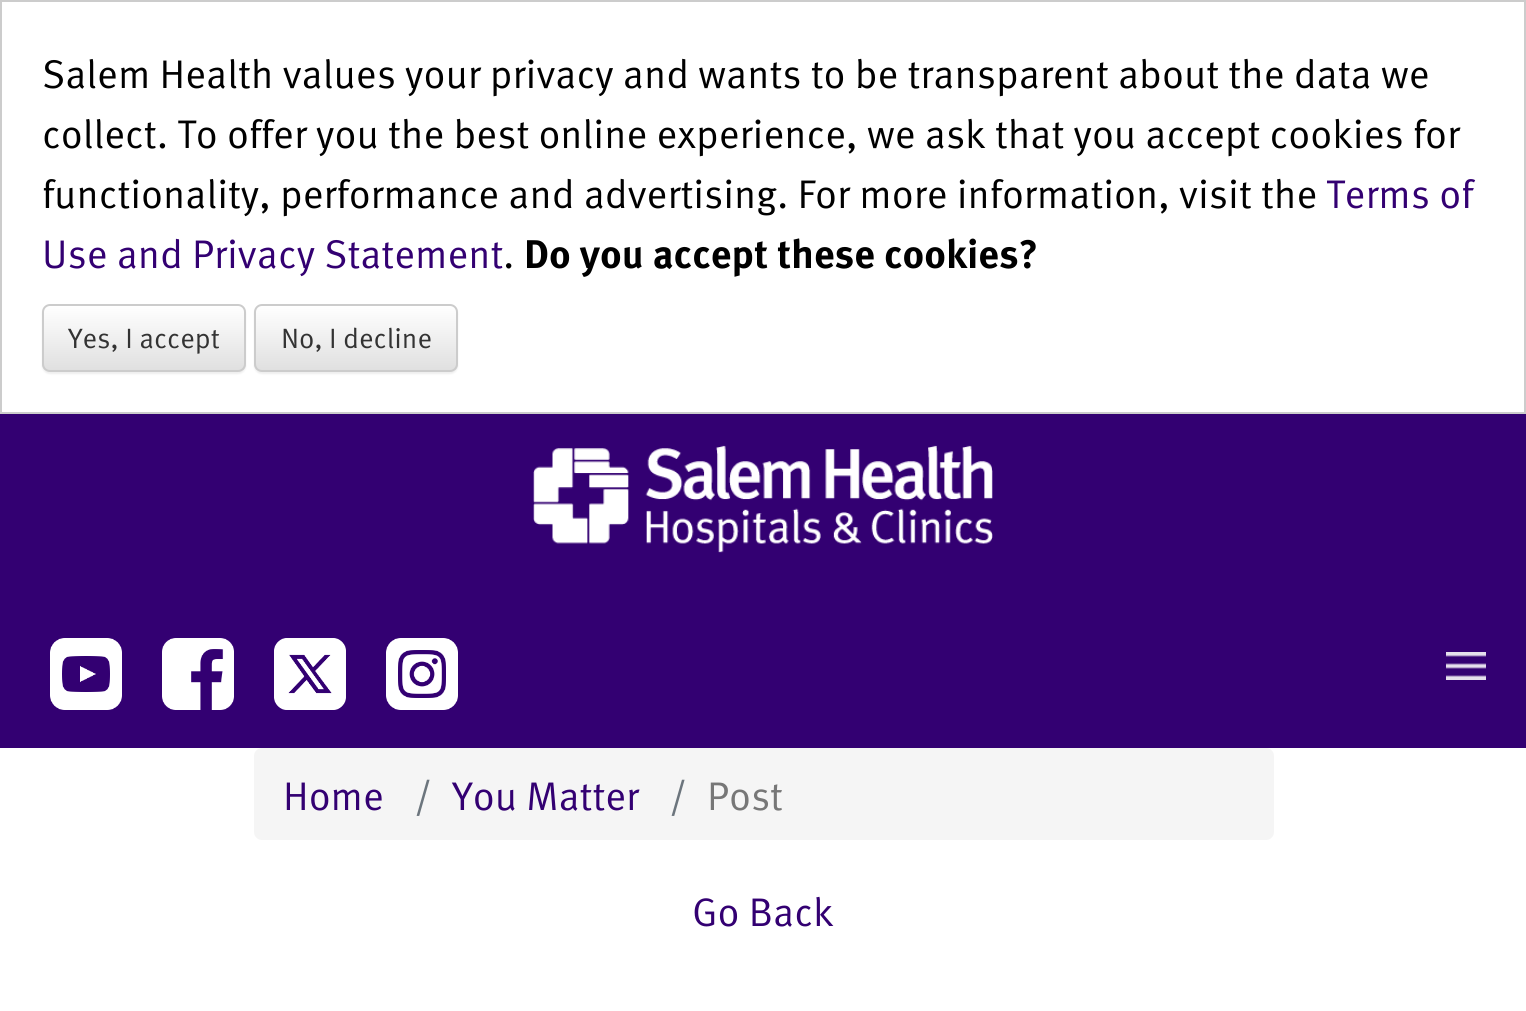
import math
import cairo

surface = cairo.ImageSurface(cairo.FORMAT_RGB24, 1526, 1011)
cr = cairo.Context(surface)
options = cairo.FontOptions()
options.set_hint_metrics(cairo.HINT_METRICS_OFF)
options.set_hint_style(cairo.HINT_STYLE_NONE)
cr.set_font_options(options)
cr.set_miter_limit(4)


def rgb(code):
    cr.set_source_rgb(*(v / 255 for v in bytes.fromhex(code[-6:])))


def rrect(x, y, w, h, r):
    cr.new_sub_path()
    for i, (u, v) in enumerate([(x + w - r, y + h - r), (x + r, y + h - r), (x + r, y + r), (x + w - r, y + r)]):
        cr.arc(u, v, r, i * math.pi / 2, (i + 1) * math.pi / 2)
    cr.close_path()


def soft_shadow(x, y, w, h, r, blur, alpha):
    cr.push_group_with_content(cairo.CONTENT_ALPHA)
    cr.set_operator(cairo.OPERATOR_SOURCE)
    for i in range(15, -16, -2):
        e = blur * i / 6
        if min(w, h) + 2 * e > 0:
            cr.set_source_rgba(0, 0, 0, alpha * math.erfc((i - 1) / 8.5) / 2)
            rrect(x - e, y - e, w + 2 * e, h + 2 * e, max(0, min(r + e + blur * .6, min(w, h) / 2 + e)))
            cr.fill()
    cr.mask(cr.pop_group())


def image(path, x, y, w, h):
    cr.save()
    cr.set_source_surface(cairo.ImageSurface.create_from_png(path), x, y)
    cr.rectangle(x, y, w, h)
    cr.fill()
    cr.restore()


rgb("#ffffff")
cr.paint()
cr.rectangle(1, 1, 1524, 412)
rgb("#cccccc")
cr.stroke()
rgb("#000000")
soft_shadow(42, 306, 204, 68, 8, 1, 0.07)
cr.save()
rrect(42, 304, 204, 68, 8)
cr.clip()
gradient = cairo.LinearGradient(144, 306, 144, 370)
gradient.add_color_stop_rgba(0, 1, 1, 1, 1)
gradient.add_color_stop_rgba(1, 0.878, 0.878, 0.878, 1)
cr.set_source(gradient)
cr.rectangle(42, 306, 204, 64)
cr.fill()
cr.restore()
rrect(43, 305, 202, 66, 7)
rgb("#cccccc")
cr.stroke()
rgb("#000000")
soft_shadow(254, 306, 204, 68, 8, 1, 0.07)
cr.save()
rrect(254, 304, 204, 68, 8)
cr.clip()
gradient = cairo.LinearGradient(356, 306, 356, 370)
gradient.add_color_stop_rgba(0, 1, 1, 1, 1)
gradient.add_color_stop_rgba(1, 0.878, 0.878, 0.878, 1)
cr.set_source(gradient)
cr.rectangle(254, 306, 204, 64)
cr.fill()
cr.restore()
rrect(255, 305, 202, 66, 7)
rgb("#cccccc")
cr.stroke()
rgb("#330072")
cr.rectangle(0, 414, 1526, 334)
cr.fill()
image("img/1.png", 533, 445, 460, 108)
image("img/2.png", 50, 638, 72, 72)
image("img/3.png", 162, 638, 72, 72)
image("img/4.png", 274, 638, 72, 72)
image("img/5.png", 386, 638, 72, 72)
image("img/6.png", 1446, 652, 40, 28)
rgb("#f5f5f5")
rrect(254, 748, 1020, 92, 8)
cr.fill()
cr.select_font_face("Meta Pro")
cr.set_font_size(40)
rgb("#000000")
for x, y, s in [
    (42, 88, "Salem Health values your privacy and wants to be transparent about the data we"),
    (42, 148, "collect. To offer you the best online experience, we ask that you accept cookies for"),
    (42, 208, "functionality, performance and advertising. For more information, visit the"),
]:
    cr.move_to(x, y)
    cr.show_text(s)
rgb("#330072")
cr.move_to(1326, 208)
cr.show_text("Terms of")
cr.move_to(42, 268)
cr.show_text("Use and Privacy Statement")
rgb("#000000")
cr.move_to(503, 268)
cr.show_text(".")
cr.select_font_face("Meta Pro", cairo.FONT_SLANT_NORMAL, cairo.FONT_WEIGHT_BOLD)
cr.move_to(524, 268)
cr.show_text("Do you accept these cookies?")
cr.select_font_face("Meta Pro")
cr.set_font_size(28)
rgb("#333333")
cr.move_to(68, 348)
cr.show_text("Yes, I accept")
cr.move_to(281, 348)
cr.show_text("No, I decline")
cr.set_font_size(40)
rgb("#330072")
cr.move_to(283, 810)
cr.show_text("Home")
rgb("#6c757d")
cr.move_to(414, 810)
cr.show_text("/")
rgb("#330072")
cr.move_to(452, 810)
cr.show_text("You Matter")
rgb("#6c757d")
cr.move_to(669, 810)
cr.show_text("/")
rgb("#777777")
cr.move_to(707, 810)
cr.show_text("Post")
rgb("#330072")
cr.move_to(692, 926)
cr.show_text("Go Back")
surface.write_to_png("page.png")
